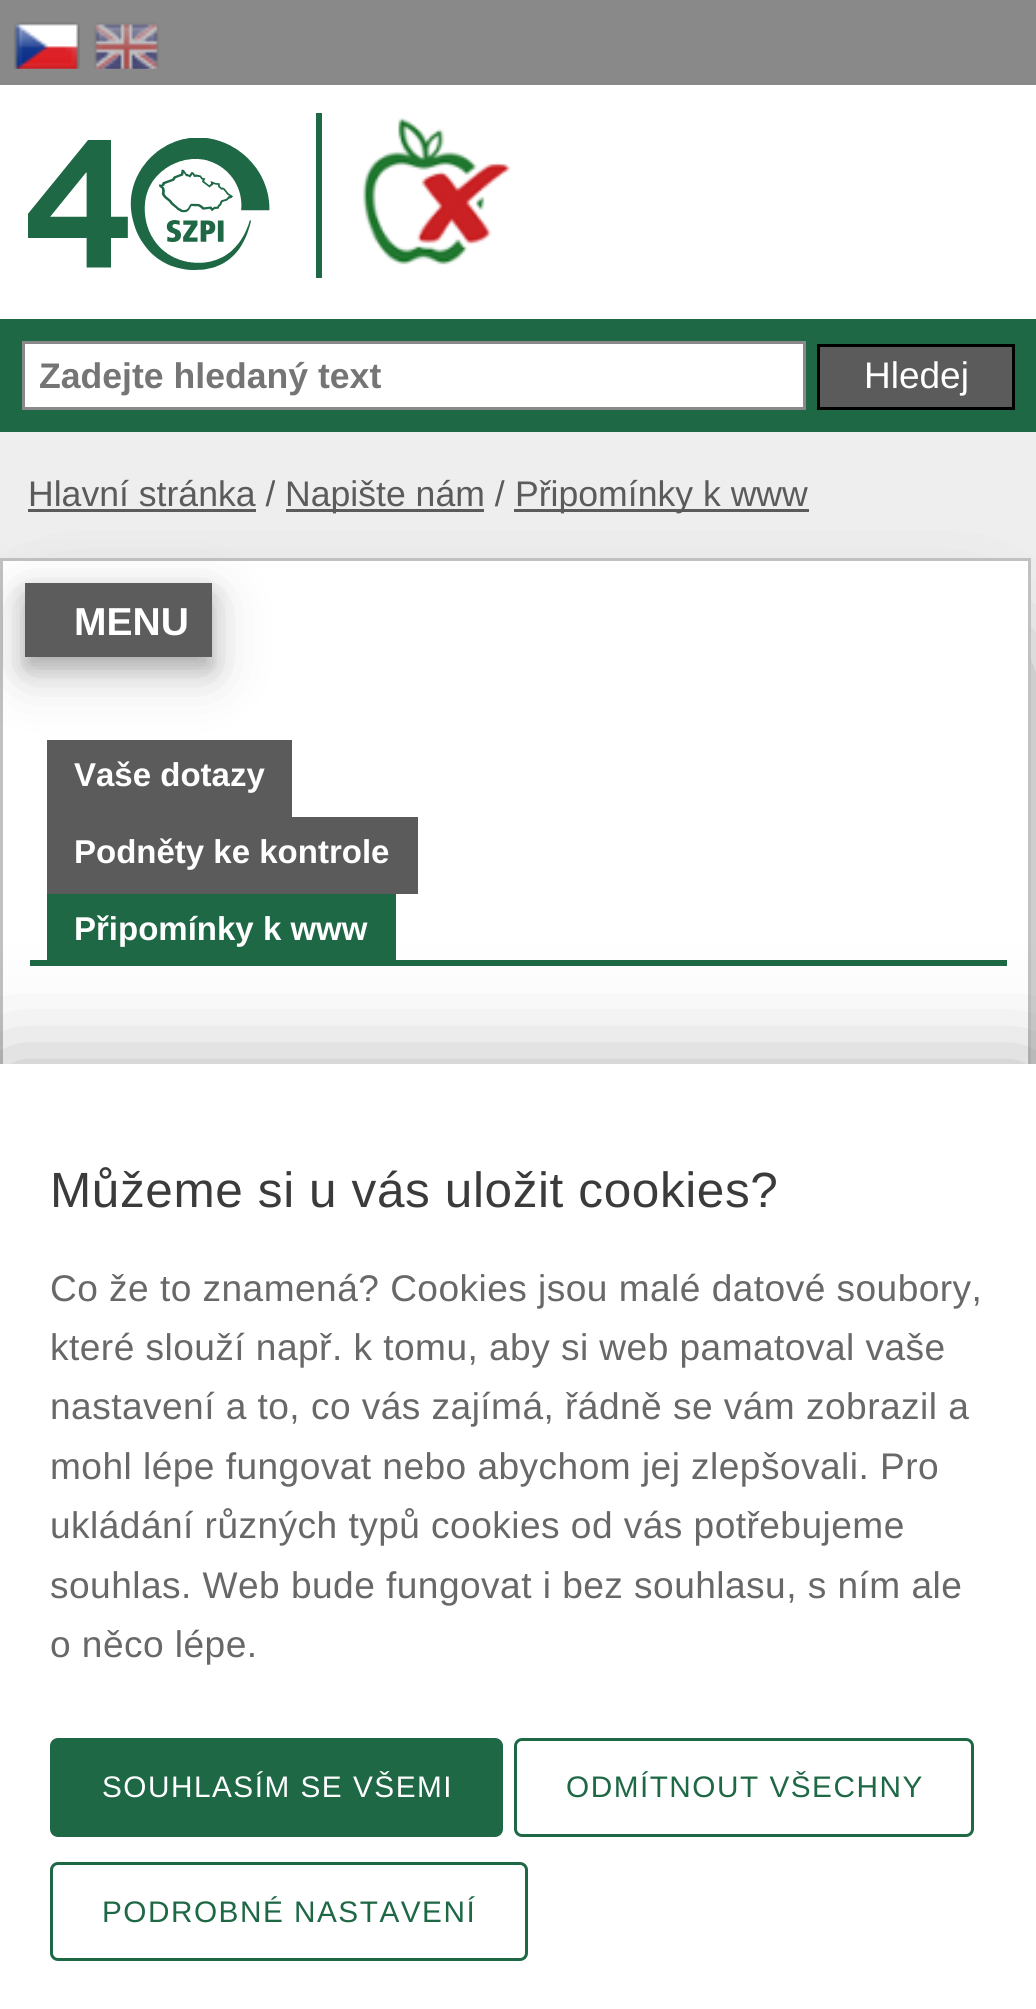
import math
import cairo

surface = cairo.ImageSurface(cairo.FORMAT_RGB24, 1036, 2009)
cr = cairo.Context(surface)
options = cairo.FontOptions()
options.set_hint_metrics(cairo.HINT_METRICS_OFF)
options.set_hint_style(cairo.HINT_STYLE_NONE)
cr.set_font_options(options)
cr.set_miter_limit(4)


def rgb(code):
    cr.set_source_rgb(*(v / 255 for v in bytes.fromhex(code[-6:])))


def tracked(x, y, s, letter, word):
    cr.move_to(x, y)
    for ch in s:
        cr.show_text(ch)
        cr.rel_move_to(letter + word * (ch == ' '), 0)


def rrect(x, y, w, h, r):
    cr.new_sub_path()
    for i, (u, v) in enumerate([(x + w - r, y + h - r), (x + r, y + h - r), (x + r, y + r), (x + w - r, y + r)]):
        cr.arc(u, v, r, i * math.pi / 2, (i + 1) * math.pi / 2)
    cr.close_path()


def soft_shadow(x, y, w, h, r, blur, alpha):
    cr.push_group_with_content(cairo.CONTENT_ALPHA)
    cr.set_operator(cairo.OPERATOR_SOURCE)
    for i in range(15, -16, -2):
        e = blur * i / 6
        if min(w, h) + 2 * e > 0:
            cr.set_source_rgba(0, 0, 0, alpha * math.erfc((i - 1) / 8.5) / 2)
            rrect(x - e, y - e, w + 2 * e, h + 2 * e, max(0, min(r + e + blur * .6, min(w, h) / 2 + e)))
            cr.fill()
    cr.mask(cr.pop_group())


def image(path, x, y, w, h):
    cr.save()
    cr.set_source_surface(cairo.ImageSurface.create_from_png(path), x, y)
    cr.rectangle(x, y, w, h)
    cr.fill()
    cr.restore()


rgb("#eeeeee")
cr.paint()
rgb("#898989")
cr.rectangle(0, 0, 1036, 85)
cr.fill()
image("img/1.png", 14, 22, 66, 47)
image("img/2.png", 94, 22, 65, 47)
rgb("#ffffff")
cr.rectangle(0, 85, 1036, 234)
cr.fill()
image("img/3.png", 28, 138, 242, 132)
rgb("#1e6846")
cr.rectangle(316, 113, 6, 165)
cr.fill()
image("img/4.png", 362, 117, 149, 148)
cr.rectangle(0, 319, 1036, 113)
cr.fill()
rgb("#ffffff")
cr.rectangle(23.5, 342.5, 781, 66)
cr.fill_preserve()
rgb("#898989")
cr.set_line_width(3)
cr.stroke()
rgb("#5b5b5b")
cr.rectangle(818.5, 345.5, 195, 63)
cr.fill_preserve()
rgb("#000000")
cr.stroke()
for x, y, w, h, color in [
    (28, 509, 228, 3, "#5b5b5b"),
    (286, 509, 198, 3, "#5b5b5b"),
    (514, 509, 295, 3, "#5b5b5b"),
]:
    rgb(color)
    cr.rectangle(x, y, w, h)
    cr.fill()
rgb("#222222")
soft_shadow(55, 668, 921, 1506, 0, 55, 1)
rgb("#ffffff")
cr.rectangle(3, 561, 1025, 503)
cr.fill()
cr.rectangle(1.5, 559.5, 1028, 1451)
rgb("#bfc2c1")
cr.stroke()
rgb("#5b5b5b")
cr.rectangle(47, 740, 245, 77)
cr.fill()
rgb("#000000")
soft_shadow(25, 600, 187, 74, 0, 27.5, 0.19)
soft_shadow(25, 594, 187, 74, 0, 11, 0.2)
for x, y, w, h, color in [
    (25, 583, 187, 74, "#5c5c5c"),
    (30, 960, 977, 6, "#1e6846"),
    (47, 817, 371, 77, "#5b5b5b"),
    (47, 894, 349, 66, "#1e6846"),
]:
    rgb(color)
    cr.rectangle(x, y, w, h)
    cr.fill()
rgb("#3b3b3b")
soft_shadow(0, 1067, 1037, 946, 0, 49.5, 0.4)
rgb("#ffffff")
cr.rectangle(0, 1064, 1036, 945)
cr.fill()
rgb("#1e6846")
rrect(51.5, 1739.5, 450, 96, 6.5)
cr.fill_preserve()
cr.stroke()
rrect(515.5, 1739.5, 457, 96, 6.5)
cr.stroke()
rrect(51.5, 1863.5, 475, 96, 6.5)
cr.stroke()
cr.select_font_face("Liberation Sans", cairo.FONT_SLANT_NORMAL, cairo.FONT_WEIGHT_BOLD)
cr.set_font_size(35.6)
rgb("#757575")
cr.move_to(39, 388)
cr.show_text("Zadejte hledaný text")
cr.select_font_face("Liberation Sans")
cr.set_font_size(37)
rgb("#ffffff")
cr.move_to(864, 388)
cr.show_text("Hledej")
cr.set_font_size(35.6)
rgb("#5b5b5b")
for x, y, s in [
    (28, 506, "Hlavní stránka /"),
    (285, 506, "Napište nám /"),
    (515, 506, "Připomínky k www"),
]:
    cr.move_to(x, y)
    cr.show_text(s)
cr.select_font_face("Liberation Sans", cairo.FONT_SLANT_NORMAL, cairo.FONT_WEIGHT_BOLD)
cr.set_font_size(39)
rgb("#ffffff")
cr.move_to(74, 635)
cr.show_text("MENU")
cr.set_font_size(33)
for x, y, s in [
    (74, 786, "Vaše dotazy"),
    (74, 863, "Podněty ke kontrole"),
    (74, 940, "Připomínky k www"),
]:
    cr.move_to(x, y)
    cr.show_text(s)
cr.select_font_face("Liberation Sans")
cr.set_font_size(49.5)
rgb("#3b3b3b")
tracked(50, 1207, "Můžeme si u vás uložit cookies?", 0.6, 0)
cr.set_font_size(37.1)
rgb("#686868")
for x, y, s in [
    (50, 1301, "Co že to znamená? Cookies jsou malé datové soubory,"),
    (50, 1360, "které slouží např. k tomu, aby si web pamatoval vaše"),
    (50, 1419, "nastavení a to, co vás zajímá, řádně se vám zobrazil a"),
    (50, 1479, "mohl lépe fungovat nebo abychom jej zlepšovali. Pro"),
    (50, 1538, "ukládání různých typů cookies od vás potřebujeme"),
    (50, 1598, "souhlas. Web bude fungovat i bez souhlasu, s ním ale"),
    (50, 1657, "o něco lépe."),
]:
    tracked(x, y, s, 0.45, 0)
cr.set_font_size(29.75)
rgb("#ffffff")
tracked(102, 1797, "SOUHLASÍM SE VŠEMI", 1.5, 0)
rgb("#1e6846")
tracked(566, 1797, "ODMÍTNOUT VŠECHNY", 1.5, 0)
tracked(102, 1922, "PODROBNÉ NASTAVENÍ", 1.5, 0)
surface.write_to_png("page.png")
